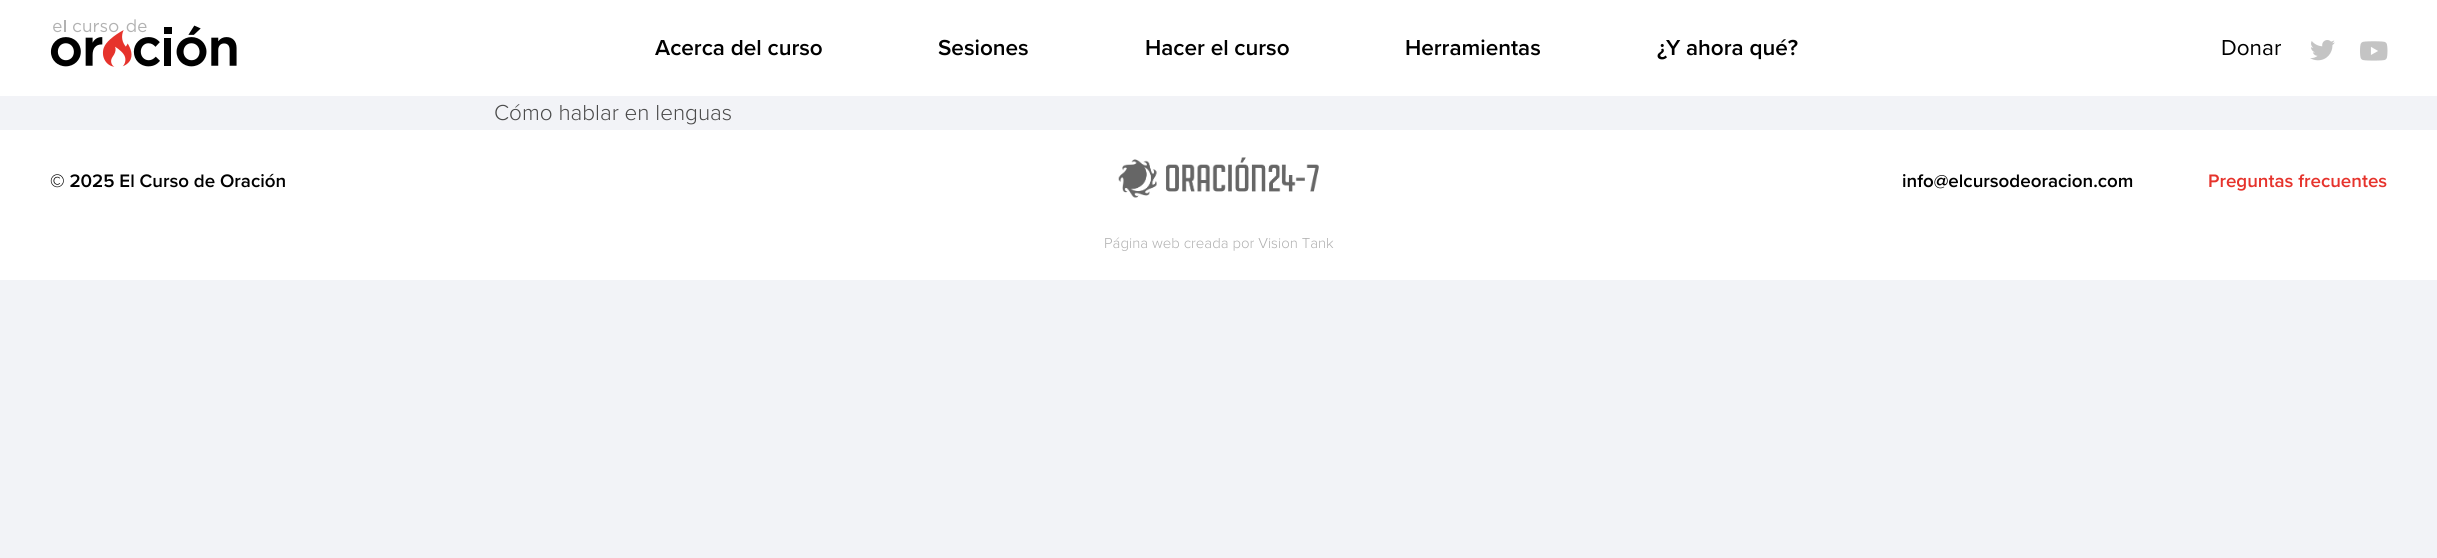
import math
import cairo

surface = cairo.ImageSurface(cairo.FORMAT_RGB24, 2437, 558)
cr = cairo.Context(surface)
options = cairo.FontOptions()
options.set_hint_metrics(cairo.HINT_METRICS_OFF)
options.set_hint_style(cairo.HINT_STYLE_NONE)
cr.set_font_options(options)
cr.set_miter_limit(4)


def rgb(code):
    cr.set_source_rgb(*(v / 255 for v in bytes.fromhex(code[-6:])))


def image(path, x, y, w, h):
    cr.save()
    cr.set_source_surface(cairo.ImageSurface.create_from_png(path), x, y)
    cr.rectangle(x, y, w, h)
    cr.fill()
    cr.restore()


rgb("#f2f3f7")
cr.paint()
rgb("#ffffff")
cr.rectangle(0, 0, 2437, 96)
cr.fill()
image("img/1.png", 50, 19, 187, 48)
image("img/2.png", 2310, 40, 25, 21)
image("img/3.png", 2360, 41, 28, 20)
cr.rectangle(0, 130, 2437, 150)
cr.fill()
image("img/4.png", 1118, 157, 201, 41)
cr.select_font_face("Proxima Nova SemiBold")
cr.set_font_size(22.5)
rgb("#000000")
for x, y, s in [
    (655, 55, "Acerca del curso"),
    (938, 55, "Sesiones"),
    (1145, 55, "Hacer el curso"),
    (1405, 55, "Herramientas"),
    (1657, 55, "¿Y ahora qué?"),
]:
    cr.move_to(x, y)
    cr.show_text(s)
cr.select_font_face("Proxima Nova")
cr.move_to(2221, 55)
cr.show_text("Donar")
cr.select_font_face("Proxima Nova Light")
rgb("#4a4a4a")
cr.move_to(494, 120)
cr.show_text("Cómo hablar en lenguas")
cr.select_font_face("Proxima Nova SemiBold")
cr.set_font_size(18.75)
rgb("#000000")
cr.move_to(50, 187)
cr.show_text("© 2025 El Curso de Oración")
cr.move_to(1902, 187)
cr.show_text("info@elcursodeoracion.com")
rgb("#e6332c")
cr.move_to(2208, 187)
cr.show_text("Preguntas frecuentes")
cr.select_font_face("Proxima Nova Light")
cr.set_font_size(15)
rgb("#afafaf")
cr.move_to(1104, 248)
cr.show_text("Página web creada por Vision Tank")
surface.write_to_png("page.png")
